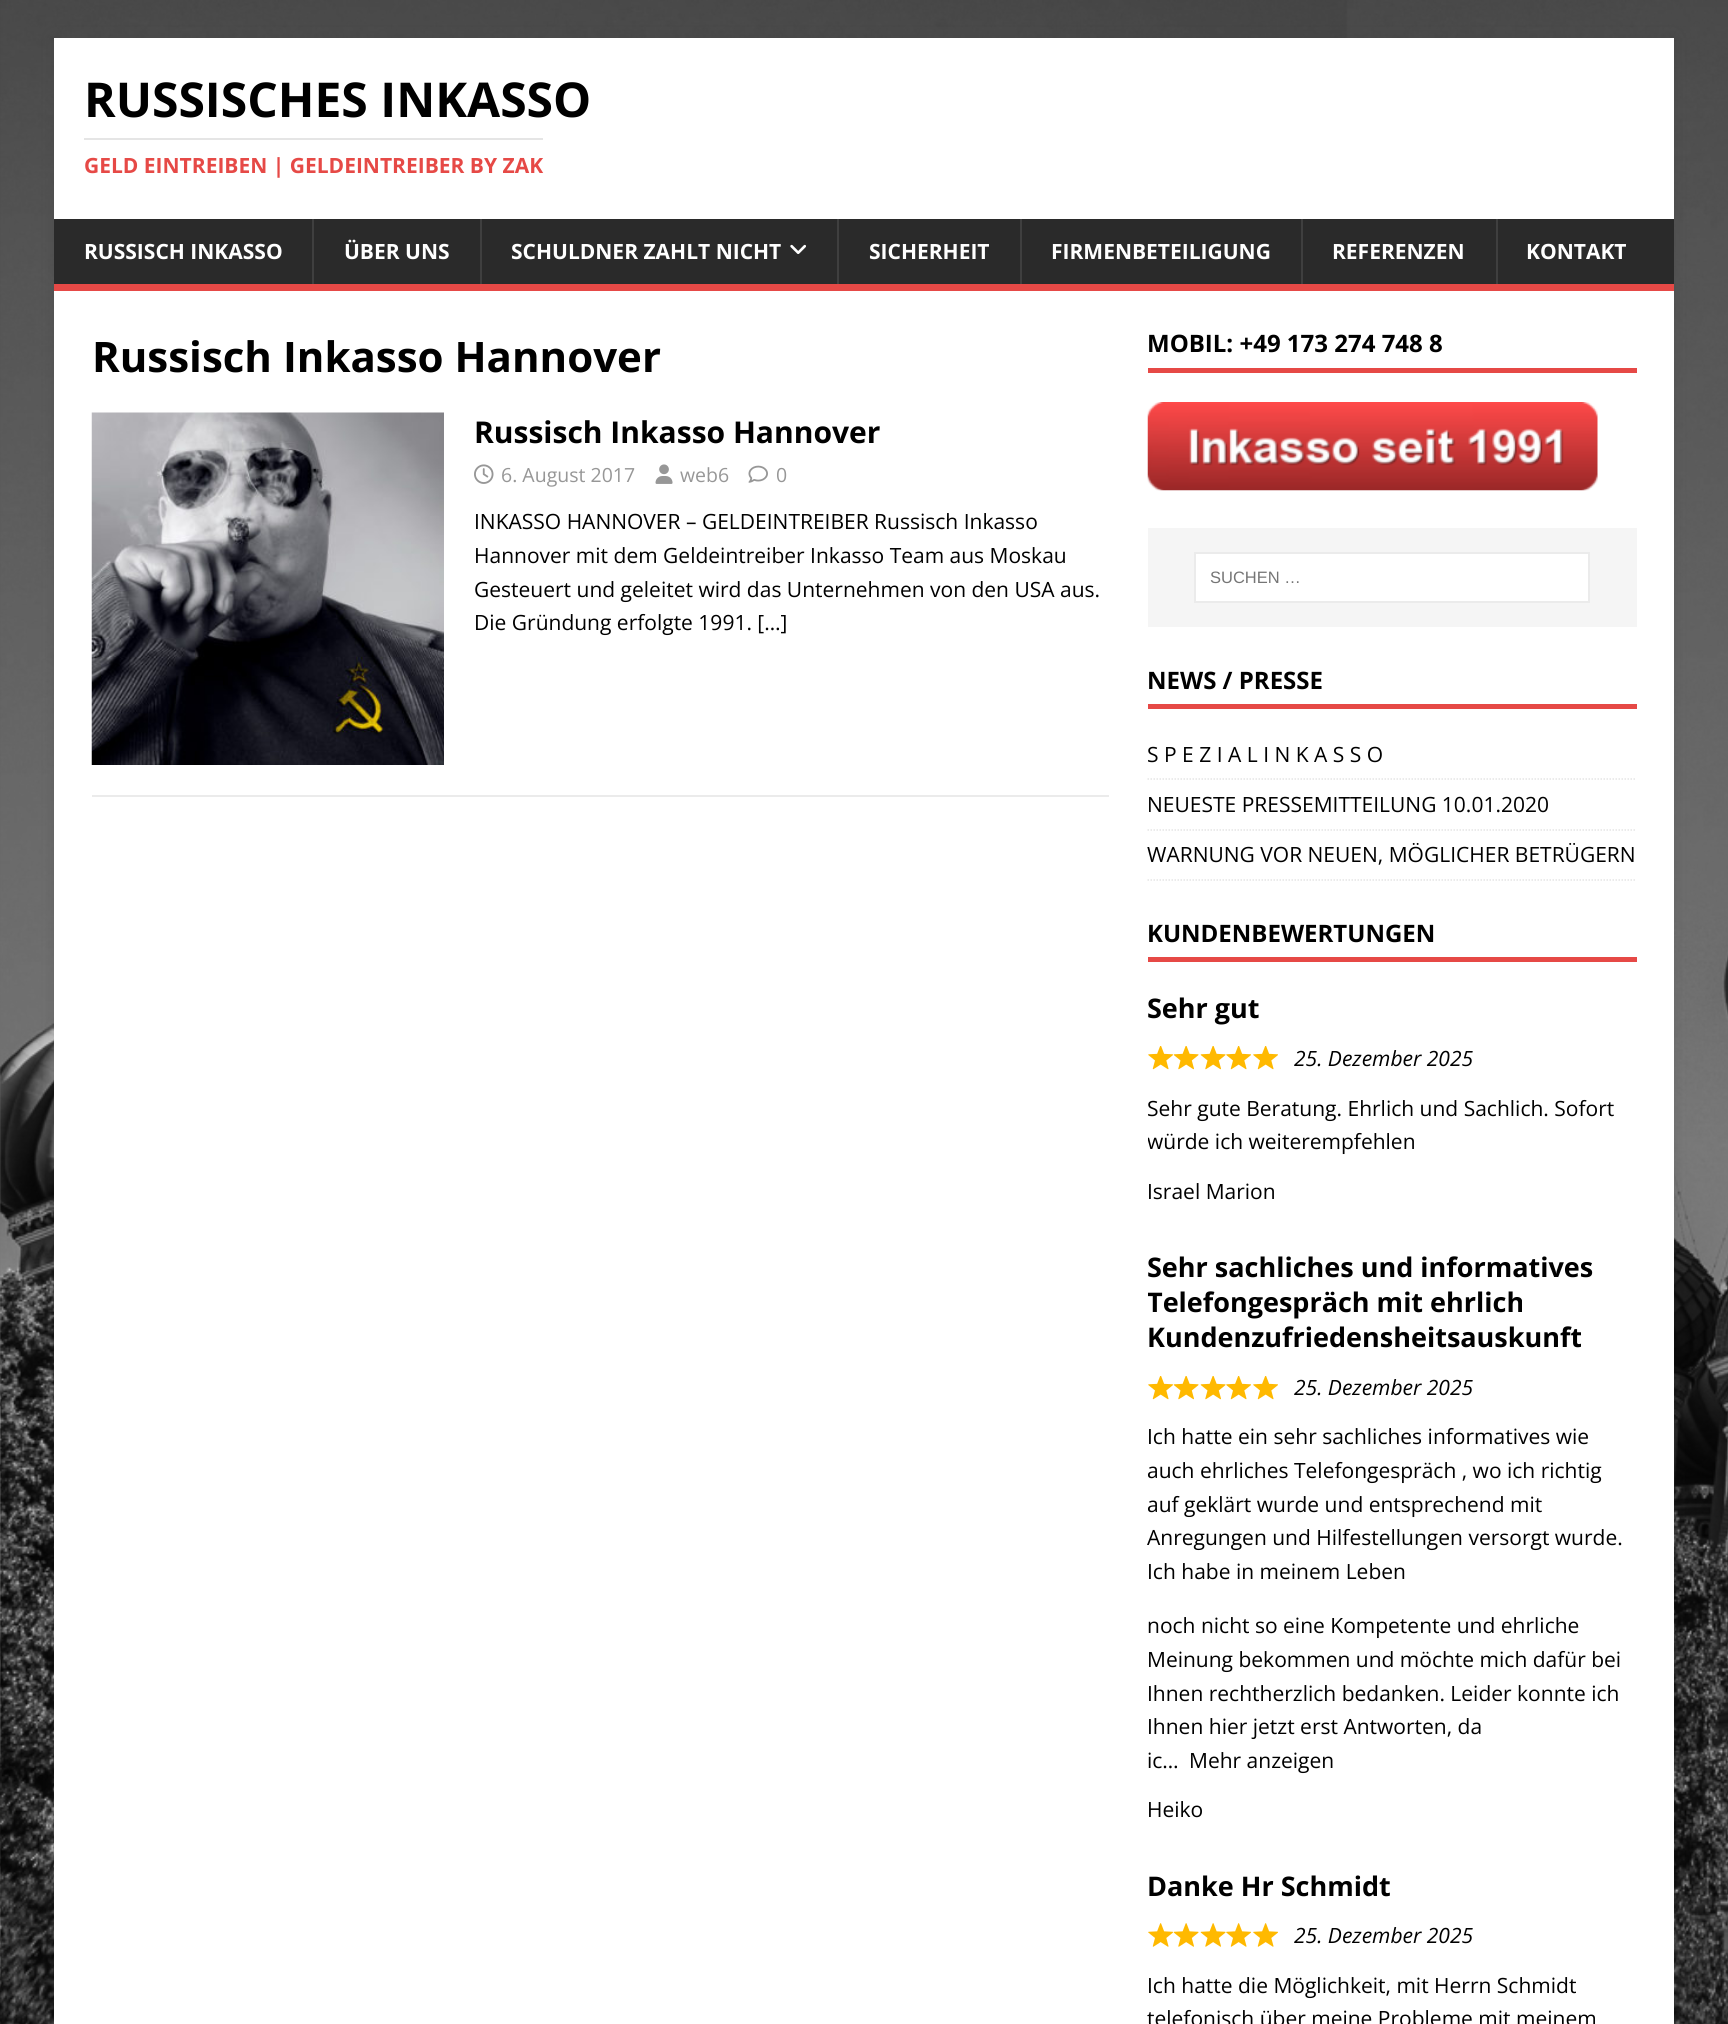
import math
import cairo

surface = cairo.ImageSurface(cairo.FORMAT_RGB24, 1728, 2024)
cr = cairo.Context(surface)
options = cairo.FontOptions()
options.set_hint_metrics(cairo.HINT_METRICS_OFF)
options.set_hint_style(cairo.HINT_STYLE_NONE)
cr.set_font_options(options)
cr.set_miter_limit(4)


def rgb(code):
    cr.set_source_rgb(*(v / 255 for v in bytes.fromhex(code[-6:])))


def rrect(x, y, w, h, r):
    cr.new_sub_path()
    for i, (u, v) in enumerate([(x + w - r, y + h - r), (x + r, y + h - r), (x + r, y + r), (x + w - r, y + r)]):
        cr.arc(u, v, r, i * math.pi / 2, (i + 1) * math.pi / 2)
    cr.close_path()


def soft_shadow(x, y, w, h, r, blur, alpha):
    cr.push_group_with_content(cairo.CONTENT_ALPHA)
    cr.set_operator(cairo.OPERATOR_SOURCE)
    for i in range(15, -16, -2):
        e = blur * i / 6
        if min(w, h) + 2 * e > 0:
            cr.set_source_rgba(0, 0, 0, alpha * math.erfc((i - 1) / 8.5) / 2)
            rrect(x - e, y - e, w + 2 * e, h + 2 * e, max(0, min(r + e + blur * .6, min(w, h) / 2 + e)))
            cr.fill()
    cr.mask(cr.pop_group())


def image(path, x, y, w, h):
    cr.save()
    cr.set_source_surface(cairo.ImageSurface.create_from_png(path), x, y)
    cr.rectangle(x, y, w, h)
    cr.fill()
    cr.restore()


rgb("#ffffff")
cr.paint()
image("img/1.png", 0, 0, 1728, 2024)
rgb("#323232")
soft_shadow(54, 38, 1620, 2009, 0, 7.5, 0.17)
for x, y, w, h, color in [
    (54, 38, 1620, 181, "#ffffff"),
    (84, 138, 459, 2, "#e5e5e5"),
    (54, 219, 1620, 65, "#2a2a2a"),
    (54, 284, 1620, 7, "#e64946"),
    (312, 219, 2, 65, "#3f3f3f"),
    (480, 219, 2, 65, "#3f3f3f"),
]:
    rgb(color)
    cr.rectangle(x, y, w, h)
    cr.fill()
image("img/2.png", 790, 244, 16, 10)
for x, y, w, h, color in [
    (837, 219, 2, 65, "#3f3f3f"),
    (1020, 219, 2, 65, "#3f3f3f"),
    (1301, 219, 2, 65, "#3f3f3f"),
    (1496, 219, 2, 65, "#3f3f3f"),
    (54, 291, 1620, 1733, "#ffffff"),
    (92, 795, 1017, 2, "#ebebeb"),
]:
    rgb(color)
    cr.rectangle(x, y, w, h)
    cr.fill()
image("img/3.png", 91, 412, 353, 353)
image("img/4.png", 474, 464, 20, 20)
image("img/5.png", 655, 464, 18, 20)
image("img/6.png", 748, 465, 20, 18)
rgb("#e64946")
cr.rectangle(1148, 368, 489, 5)
cr.fill()
image("img/7.png", 1147, 402, 451, 89)
rgb("#f5f5f5")
cr.rectangle(1148, 528, 489, 99)
cr.fill()
rgb("#ffffff")
cr.rectangle(1195, 553, 394, 49)
cr.fill_preserve()
rgb("#ebebeb")
cr.stroke()
rgb("#e64946")
cr.rectangle(1148, 704, 489, 5)
cr.fill()
cr.new_path()
cr.move_to(1147.5, 779)
cr.line_to(1636.5, 779)
rgb("#e5e5e5")
cr.set_line_width(1.5)
cr.set_dash([1.5, 1.5])
cr.stroke()
cr.new_path()
cr.move_to(1147.5, 830)
cr.line_to(1636.5, 830)
cr.stroke()
cr.new_path()
cr.move_to(1147.5, 880)
cr.line_to(1636.5, 880)
cr.stroke()
rgb("#e64946")
cr.rectangle(1148, 957, 489, 5)
cr.fill()
image("img/8.png", 1148, 1046, 25, 24)
image("img/9.png", 1173, 1046, 26, 24)
image("img/9.png", 1200, 1046, 26, 24)
image("img/8.png", 1226, 1046, 25, 24)
image("img/8.png", 1253, 1046, 25, 24)
image("img/8.png", 1148, 1376, 25, 24)
image("img/9.png", 1173, 1376, 26, 24)
image("img/9.png", 1200, 1376, 26, 24)
image("img/8.png", 1226, 1376, 25, 24)
image("img/8.png", 1253, 1376, 25, 24)
image("img/10.png", 1148, 1923, 25, 24)
image("img/11.png", 1173, 1923, 26, 24)
image("img/11.png", 1200, 1923, 26, 24)
image("img/10.png", 1226, 1923, 25, 24)
image("img/10.png", 1253, 1923, 25, 24)
cr.select_font_face("Open Sans", cairo.FONT_SLANT_NORMAL, cairo.FONT_WEIGHT_BOLD)
cr.set_font_size(48)
rgb("#000000")
cr.move_to(84, 117)
cr.show_text("RUSSISCHES INKASSO")
cr.set_font_size(21)
rgb("#e64946")
cr.move_to(84, 173)
cr.show_text("GELD EINTREIBEN | GELDEINTREIBER BY ZAK")
rgb("#ffffff")
for x, y, s in [
    (84, 259, "RUSSISCH INKASSO"),
    (344, 259, "ÜBER UNS"),
    (511, 259, "SCHULDNER ZAHLT NICHT"),
    (869, 259, "SICHERHEIT"),
    (1051, 259, "FIRMENBETEILIGUNG"),
    (1332, 259, "REFERENZEN"),
    (1526, 259, "KONTAKT"),
]:
    cr.move_to(x, y)
    cr.show_text(s)
cr.set_font_size(42)
rgb("#000000")
cr.move_to(92, 372)
cr.show_text("Russisch Inkasso Hannover")
cr.set_font_size(30)
cr.move_to(474, 443)
cr.show_text("Russisch Inkasso Hannover")
cr.select_font_face("Open Sans")
cr.set_font_size(19.5)
rgb("#979797")
for x, y, s in [
    (501, 482, "6. August 2017"),
    (680, 482, "web6"),
    (776, 482, "0"),
]:
    cr.move_to(x, y)
    cr.show_text(s)
cr.set_font_size(21)
rgb("#000000")
for x, y, s in [
    (474, 529, "INKASSO HANNOVER – GELDEINTREIBER Russisch Inkasso"),
    (474, 563, "Hannover mit dem Geldeintreiber Inkasso Team aus Moskau"),
    (474, 597, "Gesteuert und geleitet wird das Unternehmen von den USA aus."),
    (474, 630, "Die Gründung erfolgte 1991. […]"),
]:
    cr.move_to(x, y)
    cr.show_text(s)
cr.select_font_face("Open Sans", cairo.FONT_SLANT_NORMAL, cairo.FONT_WEIGHT_BOLD)
cr.set_font_size(24)
cr.move_to(1147, 352)
cr.show_text("MOBIL: +49 173 274 748 8")
cr.select_font_face("Liberation Sans")
cr.set_font_size(16.5)
rgb("#757575")
cr.move_to(1210, 583)
cr.show_text("SUCHEN …")
cr.select_font_face("Open Sans", cairo.FONT_SLANT_NORMAL, cairo.FONT_WEIGHT_BOLD)
cr.set_font_size(24)
rgb("#000000")
cr.move_to(1147, 689)
cr.show_text("NEWS / PRESSE")
cr.select_font_face("Open Sans")
cr.set_font_size(21)
for x, y, s in [
    (1147, 762, "S P E Z I A L I N K A S S O"),
    (1147, 812, "NEUESTE PRESSEMITTEILUNG 10.01.2020"),
    (1147, 862, "WARNUNG VOR NEUEN, MÖGLICHER BETRÜGERN"),
]:
    cr.move_to(x, y)
    cr.show_text(s)
cr.select_font_face("Open Sans", cairo.FONT_SLANT_NORMAL, cairo.FONT_WEIGHT_BOLD)
cr.set_font_size(24)
cr.move_to(1147, 942)
cr.show_text("KUNDENBEWERTUNGEN")
cr.set_font_size(27)
cr.move_to(1147, 1018)
cr.show_text("Sehr gut")
cr.select_font_face("Open Sans", cairo.FONT_SLANT_ITALIC)
cr.set_font_size(21)
cr.move_to(1294, 1066)
cr.show_text("25. Dezember 2025")
cr.select_font_face("Open Sans")
cr.move_to(1147, 1116)
cr.show_text("Sehr gute Beratung. Ehrlich und Sachlich. Sofort")
cr.save()
cr.rectangle(1148, 918, 489, 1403)
cr.clip()
cr.move_to(1147, 1149)
cr.show_text("würde ich weiterempfehlen")
cr.restore()
cr.move_to(1147, 1199)
cr.show_text("Israel Marion")
cr.select_font_face("Open Sans", cairo.FONT_SLANT_NORMAL, cairo.FONT_WEIGHT_BOLD)
cr.set_font_size(27)
cr.move_to(1147, 1277)
cr.show_text("Sehr sachliches und informatives")
cr.save()
cr.rectangle(1148, 918, 489, 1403)
cr.clip()
cr.move_to(1147, 1312)
cr.show_text("Telefongespräch mit ehrlich")
cr.restore()
cr.move_to(1147, 1347)
cr.show_text("Kundenzufriedensheitsauskunft")
cr.select_font_face("Open Sans", cairo.FONT_SLANT_ITALIC)
cr.set_font_size(21)
cr.move_to(1294, 1395)
cr.show_text("25. Dezember 2025")
cr.select_font_face("Open Sans")
for x, y, s in [
    (1147, 1444, "Ich hatte ein sehr sachliches informatives wie"),
    (1147, 1478, "auch ehrliches Telefongespräch , wo ich richtig"),
    (1147, 1512, "auf geklärt wurde und entsprechend mit"),
    (1147, 1545, "Anregungen und Hilfestellungen versorgt wurde."),
    (1147, 1579, "Ich habe in meinem Leben"),
    (1147, 1633, "noch nicht so eine Kompetente und ehrliche"),
    (1147, 1667, "Meinung bekommen und möchte mich dafür bei"),
    (1147, 1701, "Ihnen rechtherzlich bedanken. Leider konnte ich"),
    (1147, 1734, "Ihnen hier jetzt erst Antworten, da"),
    (1147, 1768, "ic…"),
    (1189, 1768, "Mehr anzeigen"),
    (1147, 1817, "Heiko"),
]:
    cr.move_to(x, y)
    cr.show_text(s)
cr.select_font_face("Open Sans", cairo.FONT_SLANT_NORMAL, cairo.FONT_WEIGHT_BOLD)
cr.set_font_size(27)
cr.move_to(1147, 1896)
cr.show_text("Danke Hr Schmidt")
cr.select_font_face("Open Sans", cairo.FONT_SLANT_ITALIC)
cr.set_font_size(21)
cr.move_to(1294, 1943)
cr.show_text("25. Dezember 2025")
cr.select_font_face("Open Sans")
cr.move_to(1147, 1993)
cr.show_text("Ich hatte die Möglichkeit, mit Herrn Schmidt")
cr.move_to(1147, 2026)
cr.show_text("telefonisch über meine Probleme mit meinem")
surface.write_to_png("page.png")
